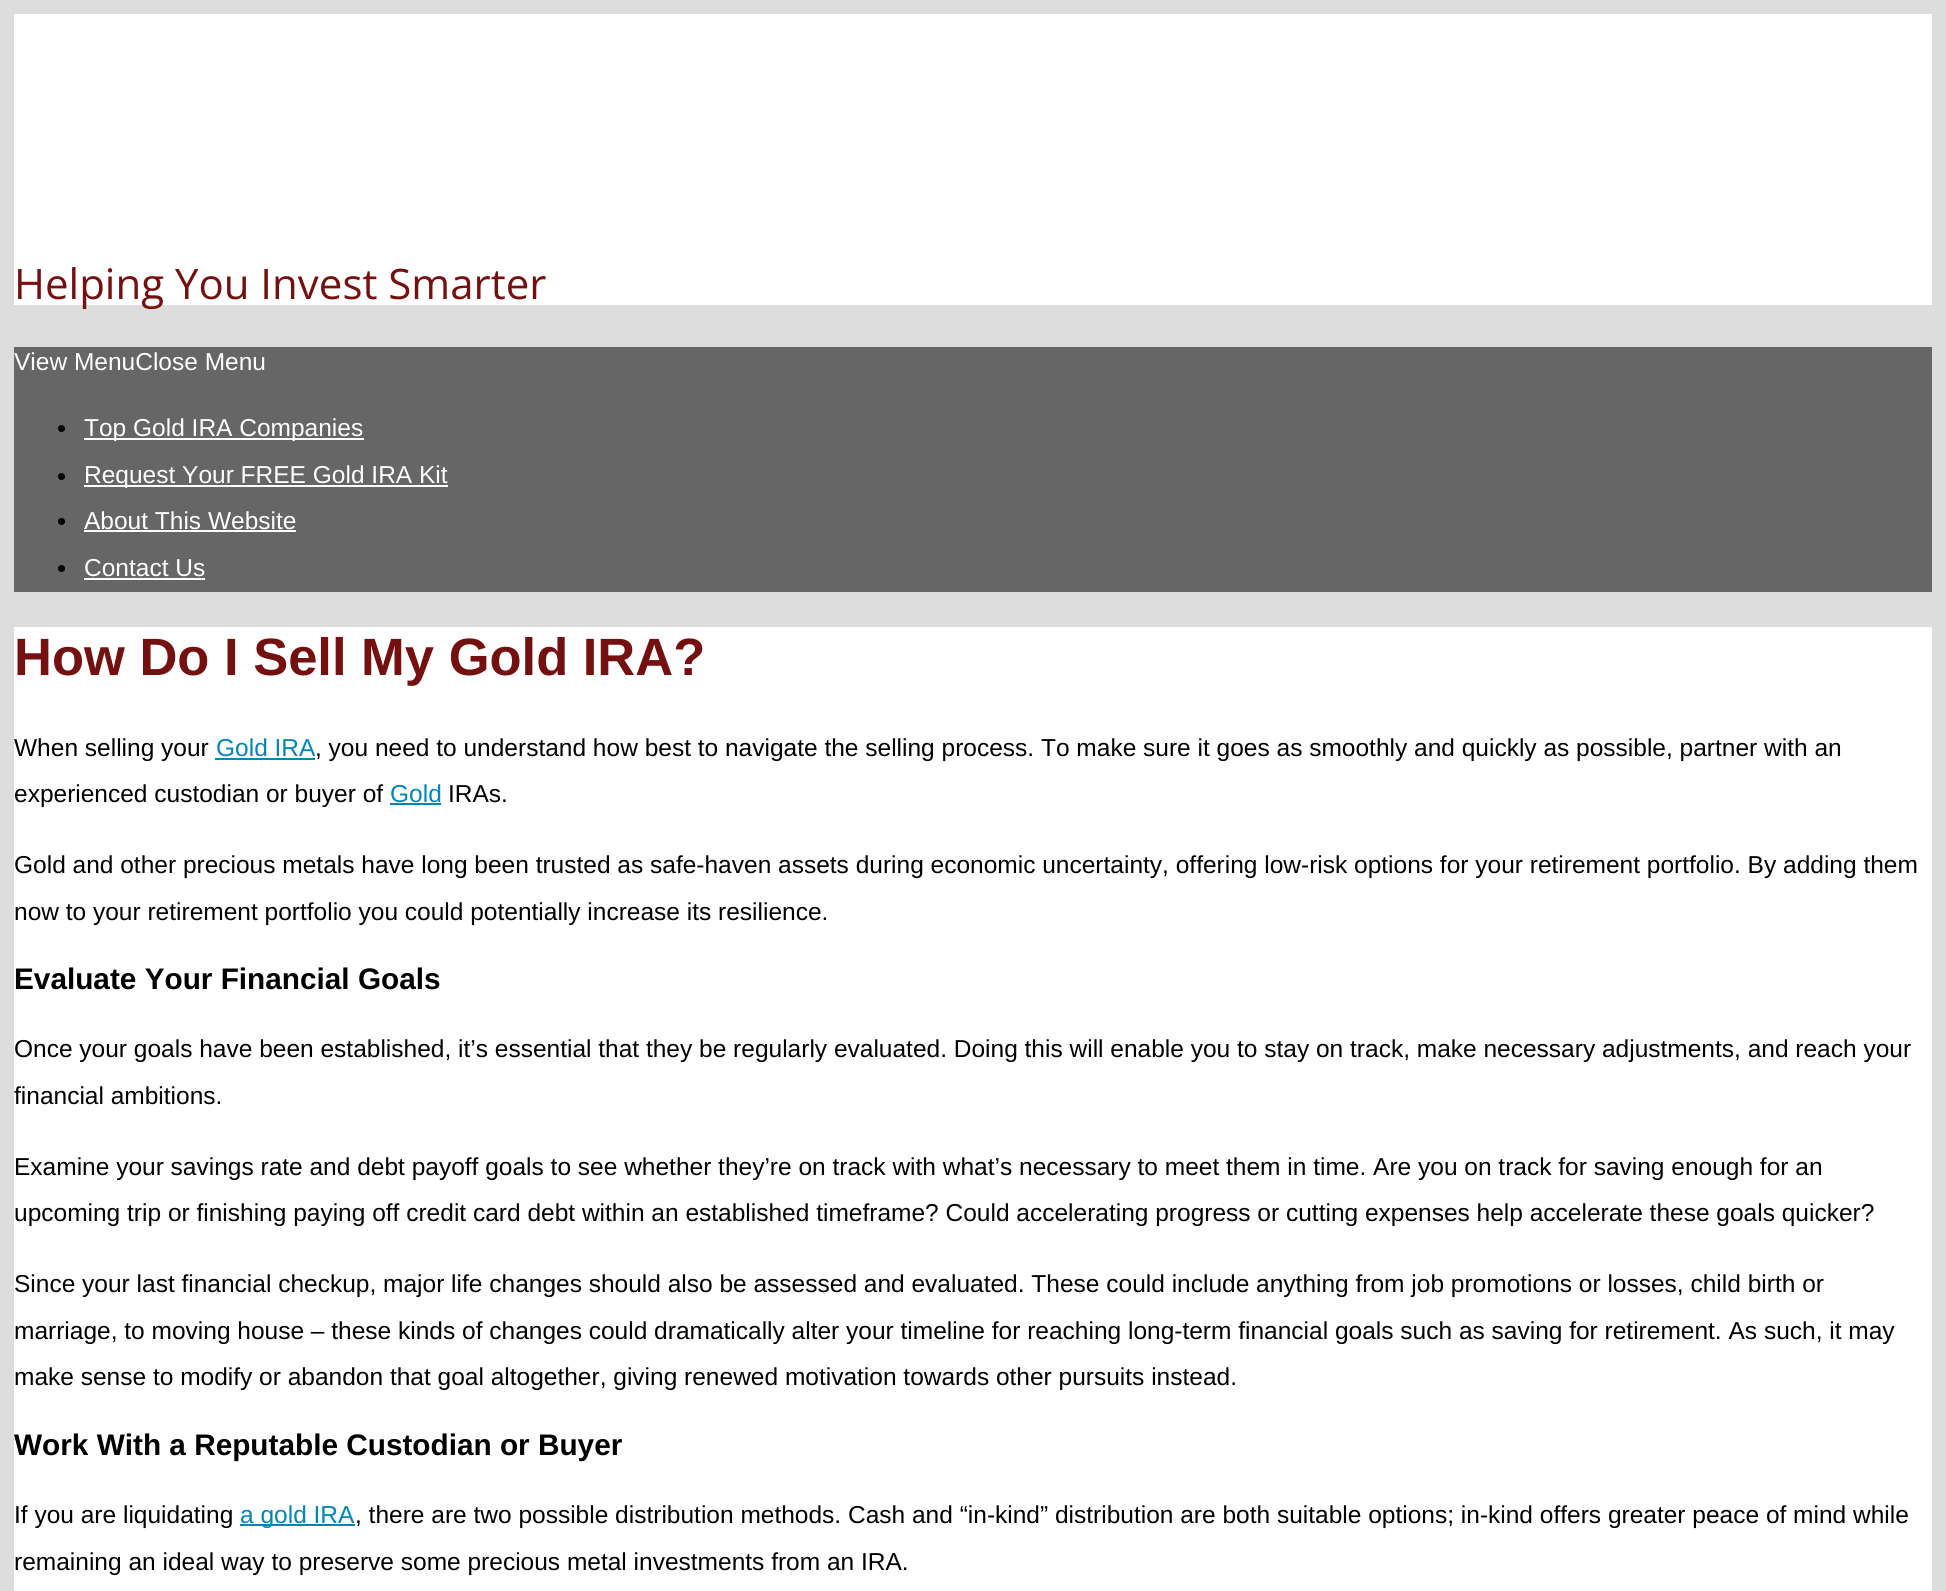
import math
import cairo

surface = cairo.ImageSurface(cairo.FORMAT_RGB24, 1946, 1591)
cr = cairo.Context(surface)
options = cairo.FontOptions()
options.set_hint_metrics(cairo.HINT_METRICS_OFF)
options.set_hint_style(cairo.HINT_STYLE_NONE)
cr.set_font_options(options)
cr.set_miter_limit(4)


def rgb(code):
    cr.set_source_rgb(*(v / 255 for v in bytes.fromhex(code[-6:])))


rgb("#dddddd")
cr.paint()
rgb("#ffffff")
cr.rectangle(14, 14, 1918, 291)
cr.fill()
rgb("#666666")
cr.rectangle(14, 347, 1918, 245)
cr.fill()
rgb("#000000")
cr.arc(61.5, 428.5, 3.5, 0, 2 * math.pi)
cr.fill()
rgb("#ffffff")
cr.rectangle(84, 438, 280, 2)
cr.fill()
rgb("#000000")
cr.arc(61.5, 476.5, 3.5, 0, 2 * math.pi)
cr.fill()
rgb("#ffffff")
cr.rectangle(84, 485, 364, 2)
cr.fill()
rgb("#000000")
cr.arc(61.5, 521.5, 3.5, 0, 2 * math.pi)
cr.fill()
rgb("#ffffff")
cr.rectangle(84, 530, 212, 2)
cr.fill()
rgb("#000000")
cr.arc(61.5, 568.5, 3.5, 0, 2 * math.pi)
cr.fill()
for x, y, w, h, color in [
    (84, 578, 121, 2, "#ffffff"),
    (14, 627, 1918, 964, "#ffffff"),
    (215, 758, 100, 2, "#0085b5"),
    (390, 803, 51, 2, "#0085b5"),
    (240, 1524, 115, 2, "#0085b5"),
]:
    rgb(color)
    cr.rectangle(x, y, w, h)
    cr.fill()
cr.select_font_face("Open Sans")
cr.set_font_size(42)
rgb("#741010")
cr.move_to(14, 299)
cr.show_text("Helping You Invest Smarter")
cr.select_font_face("Liberation Sans")
cr.set_font_size(24.5)
rgb("#ffffff")
for x, y, s in [
    (14, 370, "View MenuClose Menu"),
    (84, 436, "Top Gold IRA Companies"),
    (84, 483, "Request Your FREE Gold IRA Kit"),
    (84, 529, "About This Website"),
    (84, 576, "Contact Us"),
]:
    cr.move_to(x, y)
    cr.show_text(s)
cr.select_font_face("Liberation Sans", cairo.FONT_SLANT_NORMAL, cairo.FONT_WEIGHT_BOLD)
cr.set_font_size(52.5)
rgb("#741010")
cr.move_to(14, 675)
cr.show_text("How Do I Sell My Gold IRA?")
cr.select_font_face("Liberation Sans")
cr.set_font_size(24.5)
rgb("#000000")
cr.move_to(14, 756)
cr.show_text("When selling your")
rgb("#0085b5")
cr.move_to(216, 756)
cr.show_text("Gold IRA")
rgb("#000000")
cr.move_to(315, 756)
cr.show_text(", you need to understand how best to navigate the selling process. To make sure it goes as smoothly and quickly as possible, partner with an")
cr.move_to(14, 802)
cr.show_text("experienced custodian or buyer of")
rgb("#0085b5")
cr.move_to(390, 802)
cr.show_text("Gold")
rgb("#000000")
for x, y, s in [
    (448, 802, "IRAs."),
    (14, 873, "Gold and other precious metals have long been trusted as safe-haven assets during economic uncertainty, offering low-risk options for your retirement portfolio. By adding them"),
    (14, 920, "now to your retirement portfolio you could potentially increase its resilience."),
]:
    cr.move_to(x, y)
    cr.show_text(s)
cr.select_font_face("Liberation Sans", cairo.FONT_SLANT_NORMAL, cairo.FONT_WEIGHT_BOLD)
cr.set_font_size(29.75)
cr.move_to(14, 989)
cr.show_text("Evaluate Your Financial Goals")
cr.select_font_face("Liberation Sans")
cr.set_font_size(24.5)
for x, y, s in [
    (14, 1057, "Once your goals have been established, it’s essential that they be regularly evaluated. Doing this will enable you to stay on track, make necessary adjustments, and reach your"),
    (14, 1104, "financial ambitions."),
    (14, 1175, "Examine your savings rate and debt payoff goals to see whether they’re on track with what’s necessary to meet them in time. Are you on track for saving enough for an"),
    (14, 1221, "upcoming trip or finishing paying off credit card debt within an established timeframe? Could accelerating progress or cutting expenses help accelerate these goals quicker?"),
    (14, 1292, "Since your last financial checkup, major life changes should also be assessed and evaluated. These could include anything from job promotions or losses, child birth or"),
    (14, 1339, "marriage, to moving house – these kinds of changes could dramatically alter your timeline for reaching long-term financial goals such as saving for retirement. As such, it may"),
    (14, 1385, "make sense to modify or abandon that goal altogether, giving renewed motivation towards other pursuits instead."),
]:
    cr.move_to(x, y)
    cr.show_text(s)
cr.select_font_face("Liberation Sans", cairo.FONT_SLANT_NORMAL, cairo.FONT_WEIGHT_BOLD)
cr.set_font_size(29.75)
cr.move_to(14, 1455)
cr.show_text("Work With a Reputable Custodian or Buyer")
cr.select_font_face("Liberation Sans")
cr.set_font_size(24.5)
cr.move_to(14, 1523)
cr.show_text("If you are liquidating")
rgb("#0085b5")
cr.move_to(240, 1523)
cr.show_text("a gold IRA")
rgb("#000000")
cr.move_to(355, 1523)
cr.show_text(", there are two possible distribution methods. Cash and “in-kind” distribution are both suitable options; in-kind offers greater peace of mind while")
cr.move_to(14, 1570)
cr.show_text("remaining an ideal way to preserve some precious metal investments from an IRA.")
surface.write_to_png("page.png")
